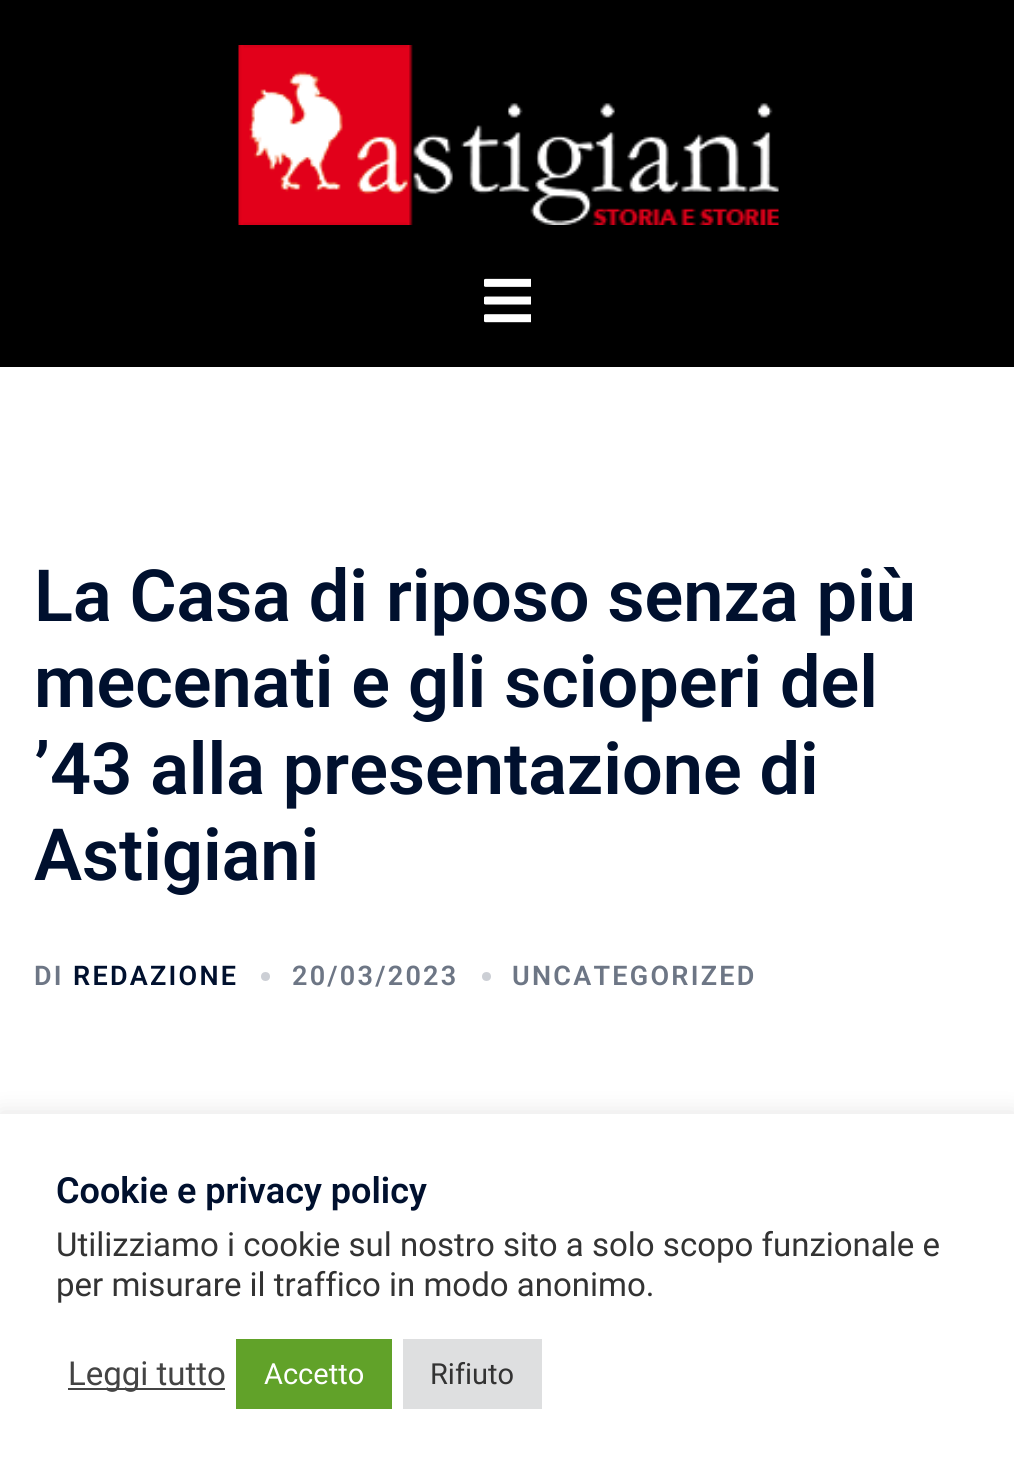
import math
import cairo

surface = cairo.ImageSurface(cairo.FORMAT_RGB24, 1014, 1476)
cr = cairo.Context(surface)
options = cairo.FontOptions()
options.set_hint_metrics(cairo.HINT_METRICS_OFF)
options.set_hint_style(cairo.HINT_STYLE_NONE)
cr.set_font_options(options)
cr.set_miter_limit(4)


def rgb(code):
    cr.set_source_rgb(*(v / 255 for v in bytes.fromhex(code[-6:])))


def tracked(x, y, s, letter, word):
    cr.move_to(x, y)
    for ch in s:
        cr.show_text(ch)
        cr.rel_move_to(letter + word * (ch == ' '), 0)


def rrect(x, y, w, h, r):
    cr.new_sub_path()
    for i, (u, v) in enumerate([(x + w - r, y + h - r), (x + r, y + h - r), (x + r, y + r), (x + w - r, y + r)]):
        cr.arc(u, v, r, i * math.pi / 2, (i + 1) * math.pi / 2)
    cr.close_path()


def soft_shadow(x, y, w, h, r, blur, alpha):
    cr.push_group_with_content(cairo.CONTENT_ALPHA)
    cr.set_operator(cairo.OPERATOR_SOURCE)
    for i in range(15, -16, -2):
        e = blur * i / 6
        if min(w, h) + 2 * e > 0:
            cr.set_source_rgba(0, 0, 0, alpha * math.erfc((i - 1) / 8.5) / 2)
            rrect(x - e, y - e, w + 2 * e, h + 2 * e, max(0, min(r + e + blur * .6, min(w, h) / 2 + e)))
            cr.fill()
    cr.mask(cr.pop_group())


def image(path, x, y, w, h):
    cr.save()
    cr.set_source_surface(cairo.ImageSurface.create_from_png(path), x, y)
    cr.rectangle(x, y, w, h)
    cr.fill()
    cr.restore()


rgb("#ffffff")
cr.paint()
rgb("#000000")
cr.rectangle(0, 0, 1014, 367)
cr.fill()
image("img/1.png", 238, 45, 541, 180)
image("img/2.png", 484, 278, 47, 45)
rgb("#cccfd5")
cr.arc(265.5, 976.5, 4.5, 0, 2 * math.pi)
cr.fill()
cr.arc(486.5, 976.5, 4.5, 0, 2 * math.pi)
cr.fill()
rgb("#acabab")
soft_shadow(0, 1112, 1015, 362, 0, 11, 0.3)
for x, y, w, h, color in [
    (0, 1114, 1014, 362, "#ffffff"),
    (68, 1388, 157, 2, "#444444"),
    (236, 1339, 156, 70, "#61a229"),
    (403, 1339, 139, 70, "#dedfe0"),
]:
    rgb(color)
    cr.rectangle(x, y, w, h)
    cr.fill()
cr.select_font_face("Roboto SemiBold")
cr.set_font_size(72)
rgb("#00102e")
for x, y, s in [
    (34, 621, "La Casa di riposo senza più"),
    (34, 707, "mecenati e gli scioperi del"),
    (34, 794, "’43 alla presentazione di"),
    (34, 880, "Astigiani"),
]:
    cr.move_to(x, y)
    cr.show_text(s)
cr.set_font_size(27)
rgb("#6d7685")
tracked(34, 985, "DI", 2.25, 0)
rgb("#00102e")
tracked(73, 985, "REDAZIONE", 2.25, 0)
rgb("#6d7685")
tracked(292, 985, "20/03/2023", 2.25, 0)
tracked(512, 985, "UNCATEGORIZED", 2.25, 0)
cr.set_font_size(36)
rgb("#00102e")
cr.move_to(56, 1203)
cr.show_text("Cookie e privacy policy")
cr.select_font_face("Roboto")
cr.set_font_size(33)
rgb("#333333")
cr.move_to(56, 1256)
cr.show_text("Utilizziamo i cookie sul nostro sito a solo scopo funzionale e")
cr.move_to(56, 1296)
cr.show_text("per misurare il traffico in modo anonimo.")
rgb("#444444")
cr.move_to(68, 1385)
cr.show_text("Leggi tutto")
cr.set_font_size(29)
rgb("#ffffff")
cr.move_to(264, 1384)
cr.show_text("Accetto")
rgb("#333333")
cr.move_to(430, 1384)
cr.show_text("Rifiuto")
surface.write_to_png("page.png")
